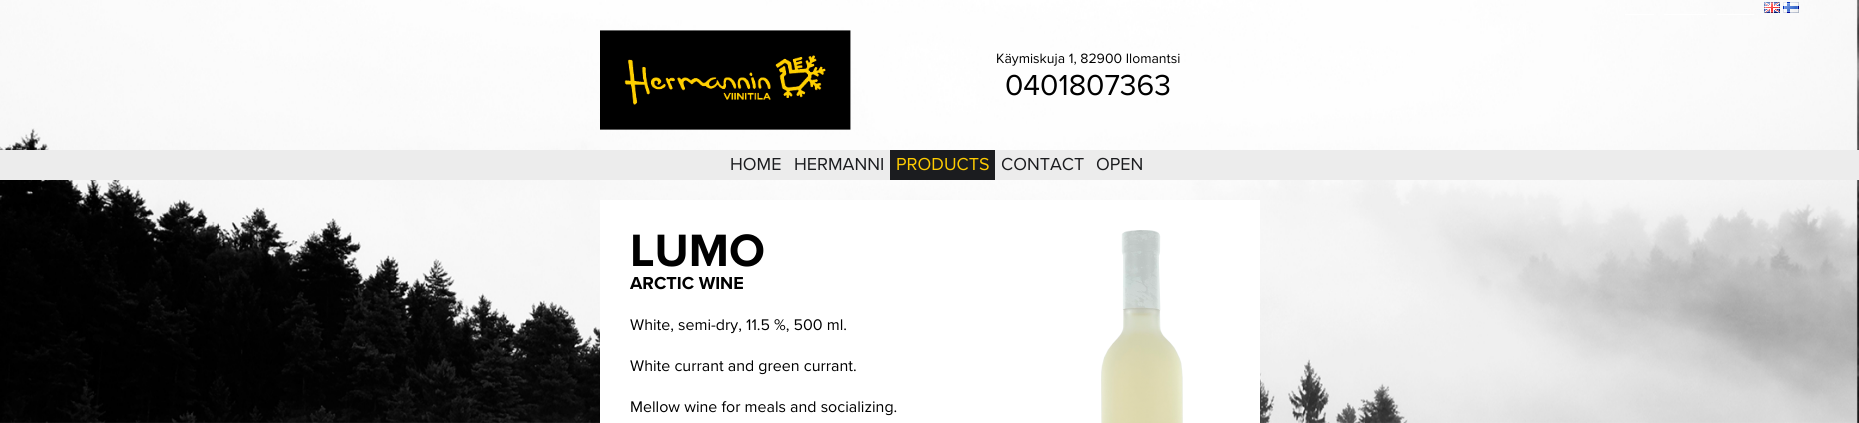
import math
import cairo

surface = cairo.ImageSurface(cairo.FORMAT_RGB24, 1859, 423)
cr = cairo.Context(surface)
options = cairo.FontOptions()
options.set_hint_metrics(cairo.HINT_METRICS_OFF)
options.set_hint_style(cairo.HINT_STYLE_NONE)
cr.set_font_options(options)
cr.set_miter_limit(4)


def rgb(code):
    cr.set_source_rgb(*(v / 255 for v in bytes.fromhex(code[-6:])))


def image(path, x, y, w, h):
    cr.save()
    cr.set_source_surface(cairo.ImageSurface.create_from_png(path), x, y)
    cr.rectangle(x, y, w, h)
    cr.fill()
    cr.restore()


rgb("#ffffff")
cr.paint()
image("img/1.png", 0, 422, 1859, 1)
image("img/2.png", 0, 0, 1859, 423)
image("img/3.png", 1764, 2, 16, 11)
image("img/4.png", 1783, 2, 16, 11)
for x, y, w, h, color in [
    (1625, 14, 29, 1, "#ffffff"),
    (1664, 14, 43, 1, "#ffffff"),
    (1717, 14, 37, 1, "#ffffff"),
]:
    rgb(color)
    cr.rectangle(x, y, w, h)
    cr.fill()
image("img/5.png", 600, 30, 251, 100)
for x, y, w, h, color in [
    (0, 150, 1859, 30, "#ececec"),
    (890, 150, 105, 30, "#1b1c1f"),
    (600, 200, 660, 223, "#ffffff"),
]:
    rgb(color)
    cr.rectangle(x, y, w, h)
    cr.fill()
image("img/6.png", 1101, 230, 82, 193)
cr.select_font_face("Proxima Nova")
cr.set_font_size(14)
rgb("#000000")
cr.move_to(996, 63)
cr.show_text("Käymiskuja 1, 82900 Ilomantsi")
cr.set_font_size(30)
cr.move_to(1005, 95)
cr.show_text("0401807363")
cr.set_font_size(18)
rgb("#1b1c1f")
cr.move_to(730, 170)
cr.show_text("HOME")
cr.move_to(794, 170)
cr.show_text("HERMANNI")
rgb("#ffcc00")
cr.move_to(896, 170)
cr.show_text("PRODUCTS")
rgb("#1b1c1f")
cr.move_to(1001, 170)
cr.show_text("CONTACT")
cr.move_to(1096, 170)
cr.show_text("OPEN")
cr.select_font_face("Proxima Nova", cairo.FONT_SLANT_NORMAL, cairo.FONT_WEIGHT_BOLD)
cr.set_font_size(47)
rgb("#000000")
cr.move_to(630, 266)
cr.show_text("LUMO")
cr.set_font_size(18)
cr.move_to(630, 289)
cr.show_text("ARCTIC WINE")
cr.select_font_face("Proxima Nova")
cr.set_font_size(16)
for x, y, s in [
    (630, 330, "White, semi-dry, 11.5 %, 500 ml."),
    (630, 371, "White currant and green currant."),
    (630, 412, "Mellow wine for meals and socializing."),
]:
    cr.move_to(x, y)
    cr.show_text(s)
surface.write_to_png("page.png")
